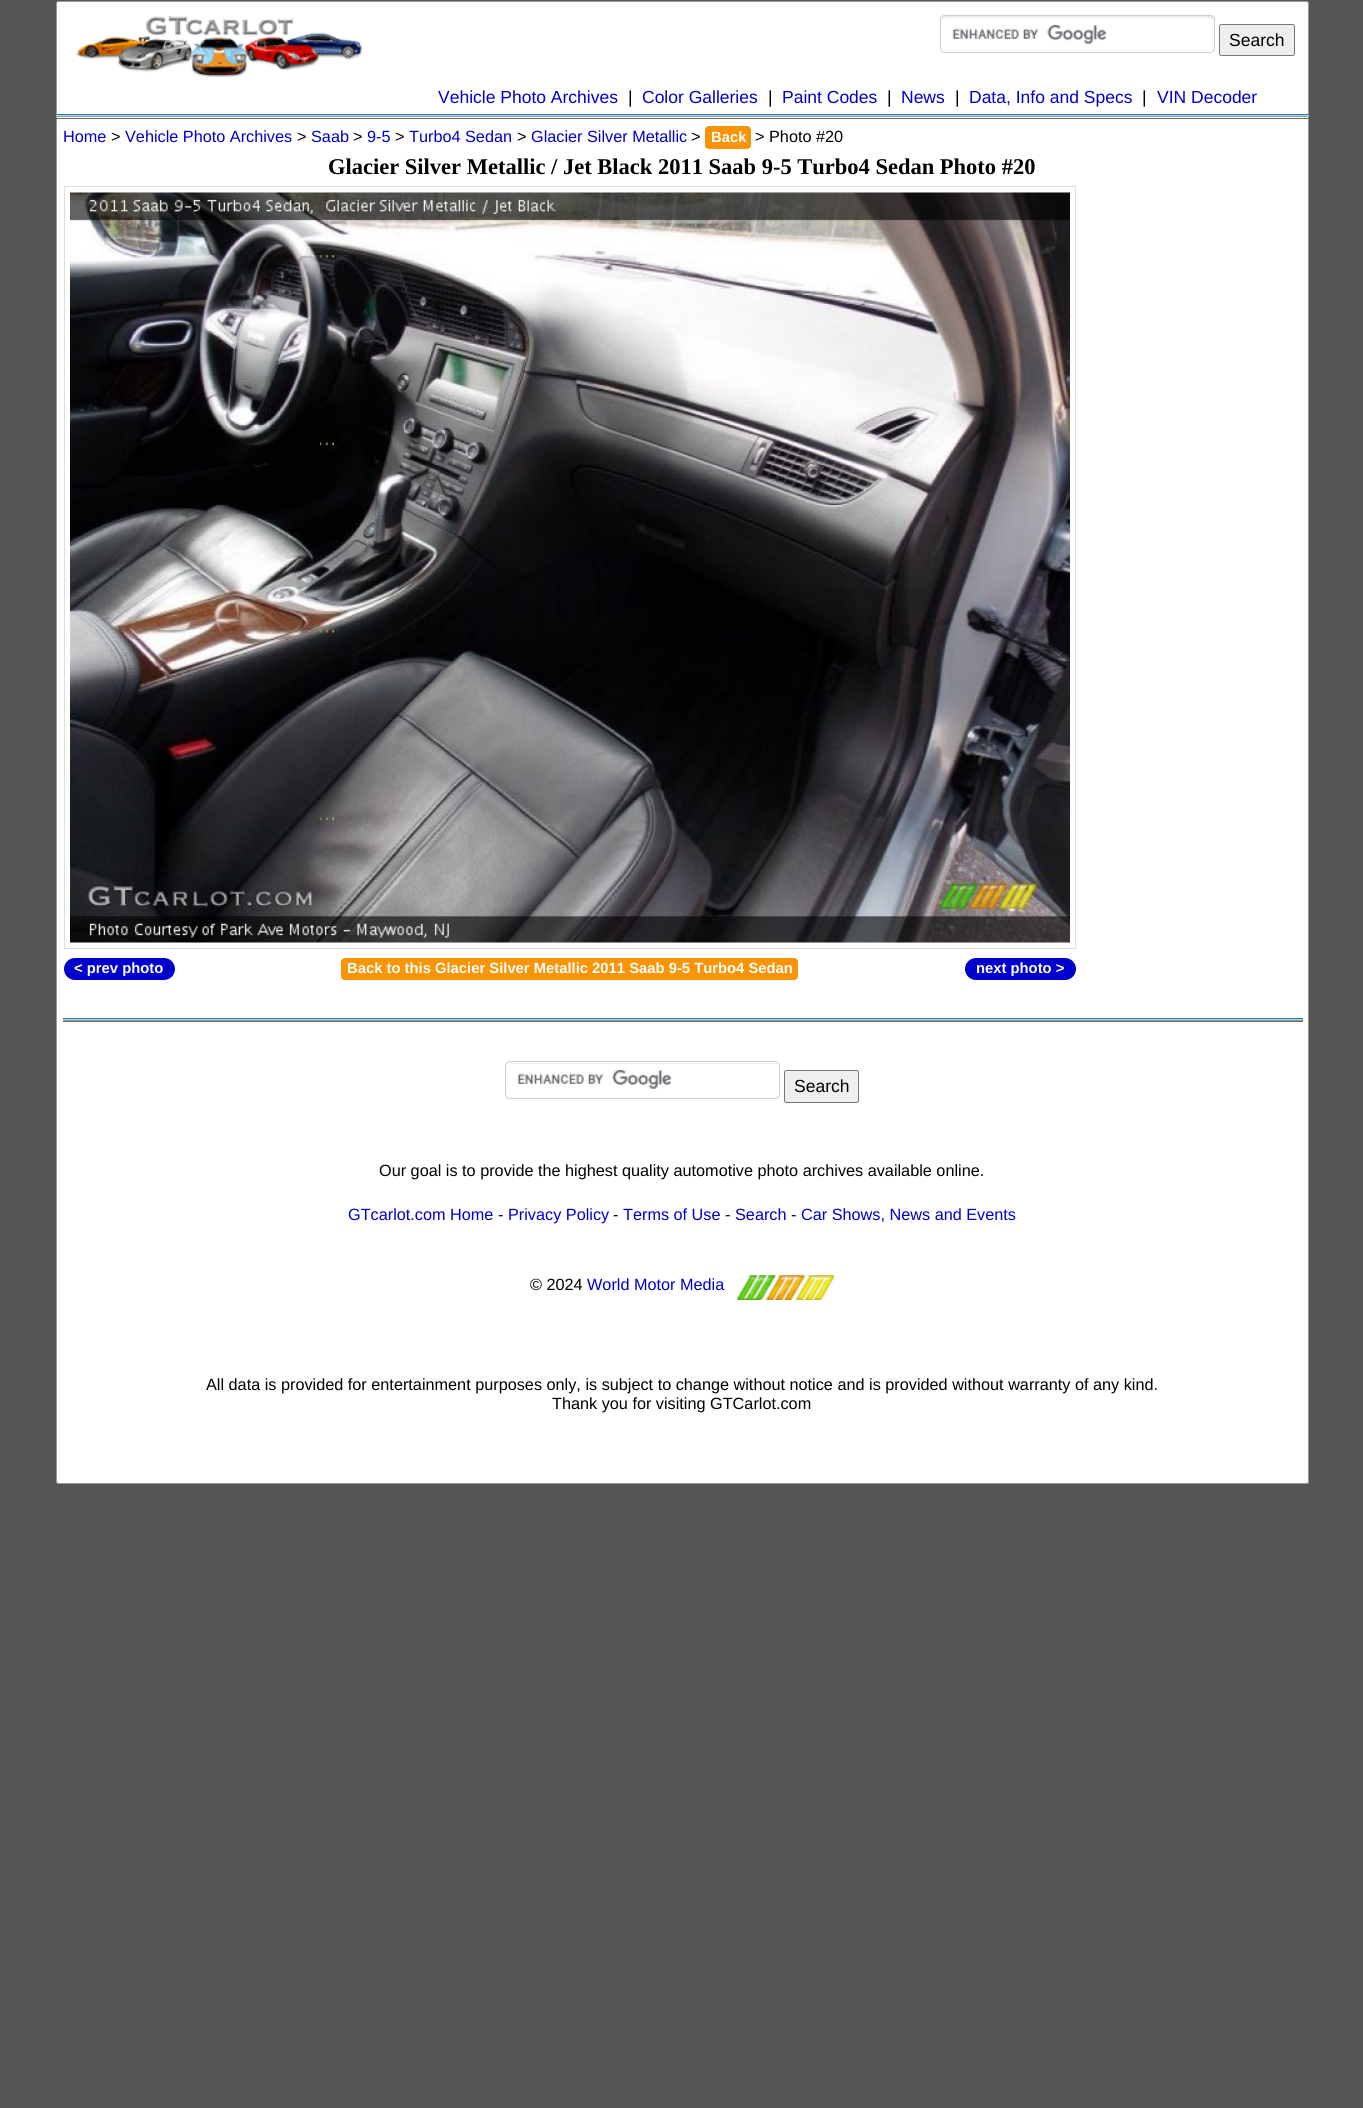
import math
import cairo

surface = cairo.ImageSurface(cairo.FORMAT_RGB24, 1363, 2108)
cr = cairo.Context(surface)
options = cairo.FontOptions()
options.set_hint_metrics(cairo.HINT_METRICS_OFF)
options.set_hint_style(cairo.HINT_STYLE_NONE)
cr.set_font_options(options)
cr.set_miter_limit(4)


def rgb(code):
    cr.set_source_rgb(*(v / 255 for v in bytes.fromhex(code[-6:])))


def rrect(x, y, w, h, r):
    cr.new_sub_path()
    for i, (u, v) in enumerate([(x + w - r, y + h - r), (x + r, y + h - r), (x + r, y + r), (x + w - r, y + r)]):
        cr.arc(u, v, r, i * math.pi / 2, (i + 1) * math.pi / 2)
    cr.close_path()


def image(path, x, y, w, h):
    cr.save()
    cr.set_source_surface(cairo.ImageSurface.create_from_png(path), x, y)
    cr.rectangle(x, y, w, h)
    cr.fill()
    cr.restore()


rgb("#555555")
cr.paint()
rgb("#ffffff")
rrect(56.5, 1.5, 1252, 1482, 2)
cr.fill_preserve()
rgb("#999999")
cr.set_line_width(1)
cr.stroke()
image("img/1.png", 76, 16, 287, 62)
image("img/2.png", 952, 25, 155, 19)
rgb("#ececec")
cr.new_path()
cr.move_to(945, 18)
cr.line_to(1211, 18)
cr.line_to(1214, 20)
cr.line_to(1214, 21)
cr.curve_to(1214, 18, 1213, 16, 1210, 16)
cr.line_to(945, 16)
cr.curve_to(942, 16, 941, 18, 941, 21)
cr.curve_to(941, 19, 943, 18, 945, 18)
cr.close_path()
cr.fill()
rrect(940.5, 15.5, 274, 37, 4.5)
rgb("#cccccc")
cr.stroke()
rgb("#efefef")
rrect(1219.5, 24.5, 75, 31, 2)
cr.fill_preserve()
rgb("#767676")
cr.stroke()
for x, y, w, h, color in [
    (56, 114, 1253, 1, "#0088cc"),
    (56, 116, 1253, 1, "#999999"),
    (56, 115, 1253, 1, "#cccccc"),
    (56, 118, 1253, 1, "#666666"),
]:
    rgb(color)
    cr.rectangle(x, y, w, h)
    cr.fill()
rgb("#f89406")
rrect(705, 126, 46, 23, 4)
cr.fill()
cr.rectangle(64.5, 186.5, 1011, 762)
rgb("#dddddd")
cr.stroke()
image("img/3.png", 70, 192, 1000, 751)
rgb("#0000cc")
rrect(64, 958, 111, 22, 11)
cr.fill()
rgb("#f89406")
rrect(341, 958, 457, 22, 4)
cr.fill()
rgb("#0000cc")
rrect(965, 958, 111, 22, 11)
cr.fill()
for x, y, w, h, color in [
    (63, 1018, 1240, 1, "#0088cc"),
    (63, 1020, 1240, 1, "#999999"),
    (63, 1019, 1240, 1, "#cccccc"),
    (63, 1021, 1240, 1, "#666666"),
]:
    rgb(color)
    cr.rectangle(x, y, w, h)
    cr.fill()
image("img/4.png", 517, 1070, 155, 19)
rgb("#ececec")
cr.new_path()
cr.move_to(510, 1064)
cr.line_to(775, 1064)
cr.curve_to(777, 1064, 779, 1065, 779, 1068)
cr.curve_to(779, 1065, 778, 1063, 775, 1063)
cr.line_to(510, 1063)
cr.curve_to(507, 1063, 506, 1065, 506, 1068)
cr.curve_to(506, 1065, 508, 1064, 510, 1064)
cr.close_path()
cr.fill()
rrect(505.5, 1061.5, 274, 37, 4.5)
rgb("#cccccc")
cr.stroke()
rgb("#efefef")
rrect(784.5, 1070.5, 74, 32, 2)
cr.fill_preserve()
rgb("#767676")
cr.stroke()
image("img/5.png", 737, 1275, 97, 25)
cr.select_font_face("Liberation Sans")
cr.set_font_size(17.5)
rgb("#000000")
cr.move_to(1229, 46)
cr.show_text("Search")
rgb("#0000cc")
cr.move_to(438, 103)
cr.show_text("Vehicle Photo Archives")
rgb("#000000")
cr.move_to(628, 103)
cr.show_text("|")
rgb("#0000cc")
cr.move_to(642, 103)
cr.show_text("Color Galleries")
rgb("#000000")
cr.move_to(768, 103)
cr.show_text("|")
rgb("#0000cc")
cr.move_to(782, 103)
cr.show_text("Paint Codes")
rgb("#000000")
cr.move_to(887, 103)
cr.show_text("|")
rgb("#0000cc")
cr.move_to(901, 103)
cr.show_text("News")
rgb("#000000")
cr.move_to(955, 103)
cr.show_text("|")
rgb("#0000cc")
cr.move_to(969, 103)
cr.show_text("Data, Info and Specs")
rgb("#000000")
cr.move_to(1142, 103)
cr.show_text("|")
rgb("#0000cc")
cr.move_to(1157, 103)
cr.show_text("VIN Decoder")
cr.set_font_size(16.25)
cr.move_to(63, 142)
cr.show_text("Home")
rgb("#000000")
cr.move_to(111, 142)
cr.show_text(">")
rgb("#0000cc")
cr.move_to(125, 142)
cr.show_text("Vehicle Photo Archives")
rgb("#000000")
cr.move_to(297, 142)
cr.show_text(">")
rgb("#0000cc")
cr.move_to(311, 142)
cr.show_text("Saab")
rgb("#000000")
cr.move_to(353, 142)
cr.show_text(">")
rgb("#0000cc")
cr.move_to(367, 142)
cr.show_text("9-5")
rgb("#000000")
cr.move_to(395, 142)
cr.show_text(">")
rgb("#0000cc")
cr.move_to(409, 142)
cr.show_text("Turbo4 Sedan")
rgb("#000000")
cr.move_to(517, 142)
cr.show_text(">")
rgb("#0000cc")
cr.move_to(531, 142)
cr.show_text("Glacier Silver Metallic")
rgb("#000000")
cr.move_to(691, 142)
cr.show_text(">")
cr.select_font_face("Liberation Sans", cairo.FONT_SLANT_NORMAL, cairo.FONT_WEIGHT_BOLD)
cr.set_font_size(14.8)
rgb("#ffffff")
cr.move_to(711, 142)
cr.show_text("Back")
cr.select_font_face("Liberation Sans")
cr.set_font_size(16.25)
rgb("#000000")
cr.move_to(755, 142)
cr.show_text("> Photo #20")
cr.select_font_face("Liberation Serif", cairo.FONT_SLANT_NORMAL, cairo.FONT_WEIGHT_BOLD)
cr.set_font_size(22.5)
cr.move_to(328, 174)
cr.show_text("Glacier Silver Metallic / Jet Black 2011 Saab 9-5 Turbo4 Sedan Photo #20")
cr.select_font_face("Liberation Sans", cairo.FONT_SLANT_NORMAL, cairo.FONT_WEIGHT_BOLD)
cr.set_font_size(14.8)
rgb("#ffffff")
for x, y, s in [
    (74, 973, "< prev photo"),
    (347, 973, "Back to this Glacier Silver Metallic 2011 Saab 9-5 Turbo4 Sedan"),
    (976, 973, "next photo >"),
]:
    cr.move_to(x, y)
    cr.show_text(s)
cr.select_font_face("Liberation Sans")
cr.set_font_size(17.5)
rgb("#000000")
cr.move_to(794, 1092)
cr.show_text("Search")
cr.set_font_size(16.25)
cr.move_to(379, 1176)
cr.show_text("Our goal is to provide the highest quality automotive photo archives available online.")
rgb("#0000cc")
cr.move_to(348, 1220)
cr.show_text("GTcarlot.com Home")
rgb("#000000")
cr.move_to(498, 1220)
cr.show_text("-")
rgb("#0000cc")
cr.move_to(508, 1220)
cr.show_text("Privacy Policy")
rgb("#000000")
cr.move_to(613, 1220)
cr.show_text("-")
rgb("#0000cc")
cr.move_to(623, 1220)
cr.show_text("Terms of Use")
rgb("#000000")
cr.move_to(725, 1220)
cr.show_text("-")
rgb("#0000cc")
cr.move_to(735, 1220)
cr.show_text("Search")
rgb("#000000")
cr.move_to(791, 1220)
cr.show_text("-")
rgb("#0000cc")
cr.move_to(801, 1220)
cr.show_text("Car Shows, News and Events")
rgb("#000000")
cr.move_to(530, 1290)
cr.show_text("© 2024")
rgb("#0000cc")
cr.move_to(587, 1290)
cr.show_text("World Motor Media")
rgb("#000000")
cr.move_to(206, 1390)
cr.show_text("All data is provided for entertainment purposes only, is subject to change without notice and is provided without warranty of any kind.")
cr.move_to(552, 1409)
cr.show_text("Thank you for visiting GTCarlot.com")
surface.write_to_png("page.png")
